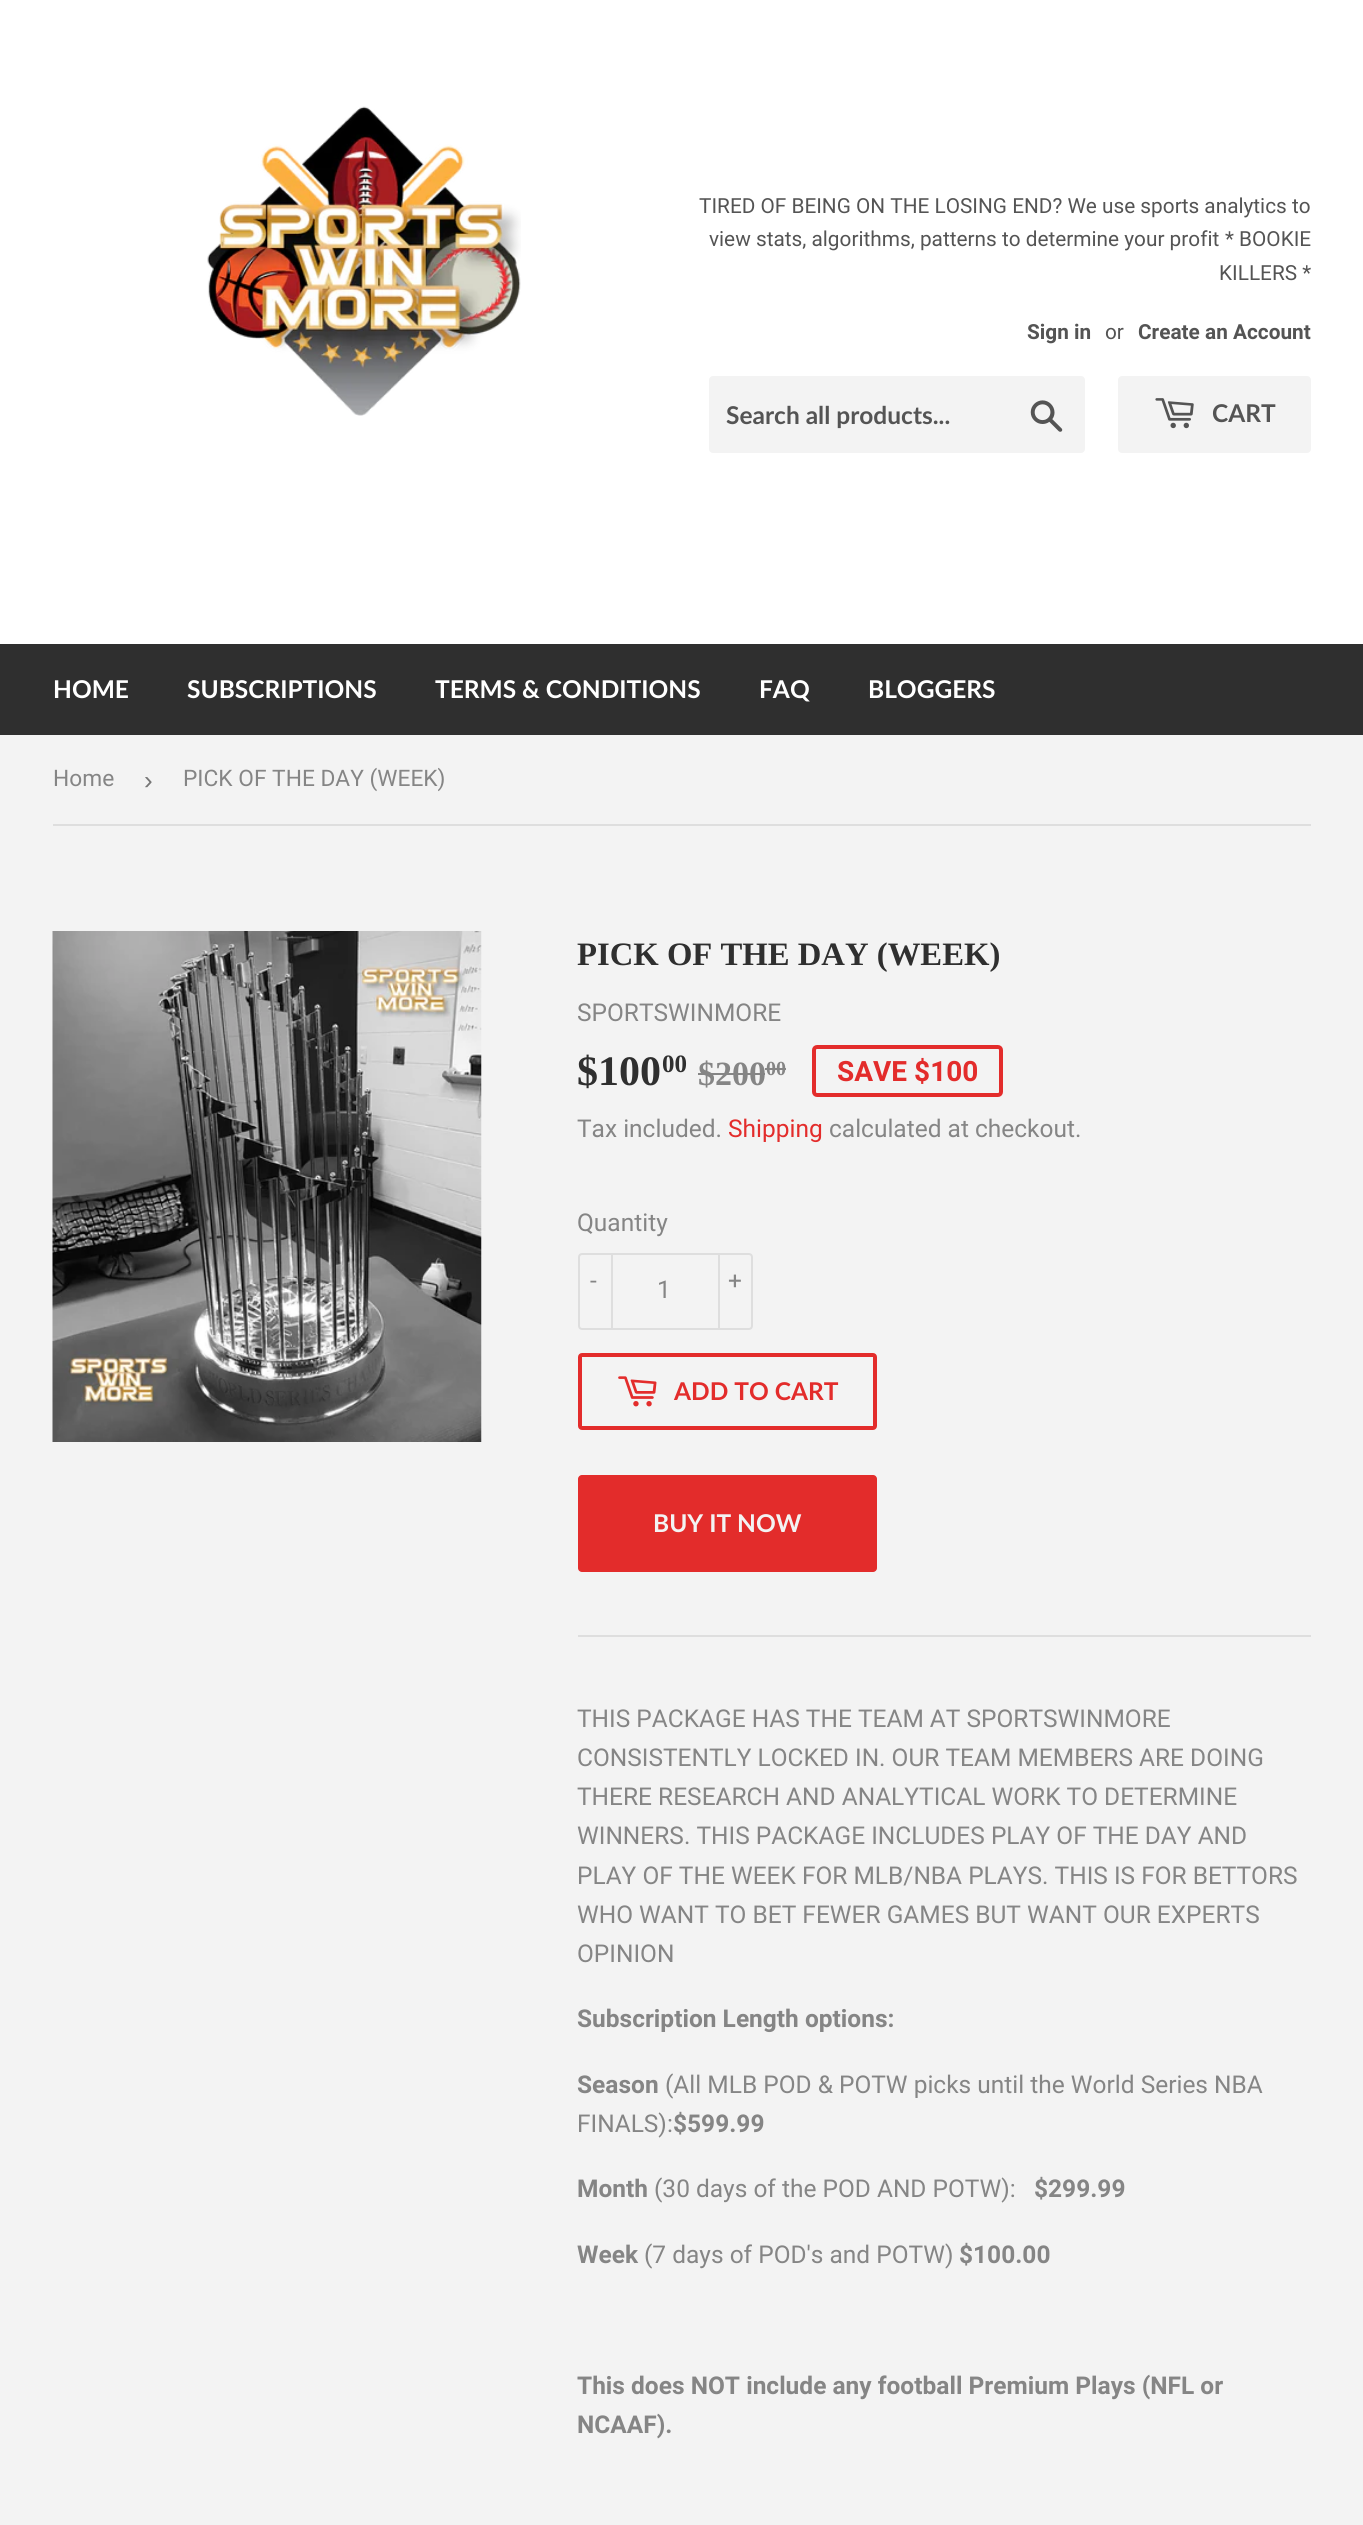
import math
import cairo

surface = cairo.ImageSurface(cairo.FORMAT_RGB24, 1363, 2525)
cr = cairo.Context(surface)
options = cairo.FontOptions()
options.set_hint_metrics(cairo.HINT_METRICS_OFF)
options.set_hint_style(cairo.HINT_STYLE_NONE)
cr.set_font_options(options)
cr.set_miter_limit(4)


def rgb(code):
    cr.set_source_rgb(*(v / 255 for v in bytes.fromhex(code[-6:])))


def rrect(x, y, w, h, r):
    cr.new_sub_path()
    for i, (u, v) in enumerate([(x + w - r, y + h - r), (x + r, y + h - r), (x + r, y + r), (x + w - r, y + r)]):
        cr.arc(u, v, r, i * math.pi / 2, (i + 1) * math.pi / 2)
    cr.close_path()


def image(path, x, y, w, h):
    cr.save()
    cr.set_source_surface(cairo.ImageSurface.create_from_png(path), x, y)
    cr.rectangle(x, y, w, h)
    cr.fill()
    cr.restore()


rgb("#f3f3f3")
cr.paint()
rgb("#ffffff")
cr.rectangle(0, 0, 1363, 644)
cr.fill()
image("img/1.png", 207, 106, 314, 310)
rgb("#f3f3f3")
rrect(709, 376, 376, 77, 4)
cr.fill()
image("img/2.png", 1030, 400, 33, 32)
rrect(1118, 376, 193, 77, 4)
cr.fill()
image("img/3.png", 1155, 398, 39, 31)
rgb("#2f2f2f")
cr.rectangle(0, 644, 1363, 91)
cr.fill()
rgb("#dedede")
cr.rectangle(53, 824, 1258, 2)
cr.fill()
image("img/4.png", 52, 931, 430, 511)
rgb("#858585")
cr.rectangle(698, 1073, 67, 2)
cr.fill()
cr.rectangle(765, 1068, 21, 2)
cr.fill()
rrect(814, 1047, 187, 48, 3)
rgb("#e32c2b")
cr.set_line_width(4)
cr.stroke()
rrect(579, 1254, 173, 75, 3)
rgb("#dedede")
cr.set_line_width(2)
cr.stroke()
cr.rectangle(611, 1253, 2, 77)
cr.fill()
cr.rectangle(718, 1253, 2, 77)
cr.fill()
rrect(580, 1355, 295, 73, 2)
rgb("#e32c2b")
cr.set_line_width(4)
cr.stroke()
image("img/5.png", 618, 1376, 39, 31)
rrect(578, 1475, 299, 97, 4)
cr.fill()
rgb("#dedede")
cr.rectangle(578, 1635, 733, 2)
cr.fill()
cr.select_font_face("Roboto")
cr.set_font_size(20.8)
rgb("#545454")
for x, y, s in [
    (699, 213, "TIRED OF BEING ON THE LOSING END? We use sports analytics to"),
    (709, 246, "view stats, algorithms, patterns to determine your profit"),
    (1225, 246, "* BOOKIE"),
    (1219, 280, "KILLERS *"),
]:
    cr.move_to(x, y)
    cr.show_text(s)
cr.select_font_face("Roboto", cairo.FONT_SLANT_NORMAL, cairo.FONT_WEIGHT_BOLD)
cr.move_to(1027, 339)
cr.show_text("Sign in")
cr.select_font_face("Roboto")
cr.move_to(1105, 339)
cr.show_text("or")
cr.select_font_face("Roboto", cairo.FONT_SLANT_NORMAL, cairo.FONT_WEIGHT_BOLD)
cr.move_to(1138, 339)
cr.show_text("Create an Account")
cr.select_font_face("Lato", cairo.FONT_SLANT_NORMAL, cairo.FONT_WEIGHT_BOLD)
cr.set_font_size(24.5)
cr.move_to(726, 424)
cr.show_text("Search all products...")
cr.move_to(1212, 422)
cr.show_text("CART")
rgb("#ffffff")
for x, y, s in [
    (53, 698, "HOME"),
    (187, 698, "SUBSCRIPTIONS"),
    (435, 698, "TERMS & CONDITIONS"),
    (759, 698, "FAQ"),
    (868, 698, "BLOGGERS"),
]:
    cr.move_to(x, y)
    cr.show_text(s)
cr.select_font_face("Roboto")
cr.set_font_size(22.75)
rgb("#858585")
cr.move_to(53, 786)
cr.show_text("Home")
cr.select_font_face("Liberation Sans")
cr.set_font_size(26)
rgb("#767676")
cr.move_to(144, 789)
cr.show_text("›")
cr.select_font_face("Roboto")
cr.set_font_size(22.75)
rgb("#858585")
cr.move_to(183, 786)
cr.show_text("PICK OF THE DAY (WEEK)")
cr.select_font_face("Liberation Serif", cairo.FONT_SLANT_NORMAL, cairo.FONT_WEIGHT_BOLD)
cr.set_font_size(32.7)
rgb("#2f2f2f")
cr.move_to(577, 965)
cr.show_text("PICK OF THE DAY (WEEK)")
cr.select_font_face("Roboto")
cr.set_font_size(24.5)
rgb("#858585")
cr.move_to(577, 1021)
cr.show_text("SPORTSWINMORE")
cr.select_font_face("Liberation Serif", cairo.FONT_SLANT_NORMAL, cairo.FONT_WEIGHT_BOLD)
cr.set_font_size(42)
rgb("#2f2f2f")
cr.move_to(577, 1085)
cr.show_text("$100")
cr.set_font_size(25)
cr.move_to(662, 1072)
cr.show_text("00")
cr.set_font_size(34)
rgb("#858585")
cr.move_to(698, 1085)
cr.show_text("$200")
cr.set_font_size(20)
cr.move_to(766, 1075)
cr.show_text("00")
cr.select_font_face("Roboto", cairo.FONT_SLANT_NORMAL, cairo.FONT_WEIGHT_BOLD)
cr.set_font_size(28)
rgb("#e32c2b")
cr.move_to(837, 1081)
cr.show_text("SAVE $100")
cr.select_font_face("Roboto")
cr.set_font_size(24.5)
rgb("#858585")
cr.move_to(577, 1137)
cr.show_text("Tax included.")
rgb("#e32c2b")
cr.move_to(728, 1137)
cr.show_text("Shipping")
rgb("#858585")
for x, y, s in [
    (829, 1137, "calculated at checkout."),
    (577, 1231, "Quantity"),
    (590, 1289, "-"),
    (657, 1298, "1"),
    (728, 1289, "+"),
]:
    cr.move_to(x, y)
    cr.show_text(s)
cr.select_font_face("Lato", cairo.FONT_SLANT_NORMAL, cairo.FONT_WEIGHT_BOLD)
rgb("#e32c2b")
cr.move_to(674, 1400)
cr.show_text("ADD TO CART")
rgb("#f3f3f3")
cr.move_to(653, 1532)
cr.show_text("BUY IT NOW")
cr.select_font_face("Roboto")
rgb("#858585")
for x, y, s in [
    (577, 1727, "THIS PACKAGE HAS THE TEAM AT SPORTSWINMORE"),
    (577, 1766, "CONSISTENTLY LOCKED IN. OUR TEAM MEMBERS ARE DOING"),
    (577, 1805, "THERE RESEARCH AND ANALYTICAL WORK TO DETERMINE"),
    (577, 1844, "WINNERS. THIS PACKAGE INCLUDES PLAY OF THE DAY AND"),
    (577, 1884, "PLAY OF THE WEEK FOR MLB/NBA PLAYS. THIS IS FOR BETTORS"),
    (577, 1923, "WHO WANT TO BET FEWER GAMES BUT WANT OUR EXPERTS"),
    (577, 1962, "OPINION"),
]:
    cr.move_to(x, y)
    cr.show_text(s)
cr.select_font_face("Roboto", cairo.FONT_SLANT_NORMAL, cairo.FONT_WEIGHT_BOLD)
cr.move_to(577, 2027)
cr.show_text("Subscription Length options:")
cr.move_to(577, 2093)
cr.show_text("Season")
cr.select_font_face("Roboto")
cr.move_to(665, 2093)
cr.show_text("(All MLB POD & POTW picks until the World Series NBA")
cr.move_to(577, 2132)
cr.show_text("FINALS):")
cr.select_font_face("Roboto", cairo.FONT_SLANT_NORMAL, cairo.FONT_WEIGHT_BOLD)
cr.move_to(673, 2132)
cr.show_text("$599.99")
cr.move_to(577, 2197)
cr.show_text("Month")
cr.select_font_face("Roboto")
cr.move_to(654, 2197)
cr.show_text("(30 days of the POD AND POTW):")
cr.select_font_face("Roboto", cairo.FONT_SLANT_NORMAL, cairo.FONT_WEIGHT_BOLD)
cr.move_to(1034, 2197)
cr.show_text("$299.99")
cr.move_to(577, 2263)
cr.show_text("Week")
cr.select_font_face("Roboto")
cr.move_to(644, 2263)
cr.show_text("(7 days of POD's and POTW)")
cr.select_font_face("Roboto", cairo.FONT_SLANT_NORMAL, cairo.FONT_WEIGHT_BOLD)
for x, y, s in [
    (959, 2263, "$100.00"),
    (577, 2394, "This does NOT include any football Premium Plays (NFL or"),
    (577, 2433, "NCAAF)."),
]:
    cr.move_to(x, y)
    cr.show_text(s)
surface.write_to_png("page.png")
